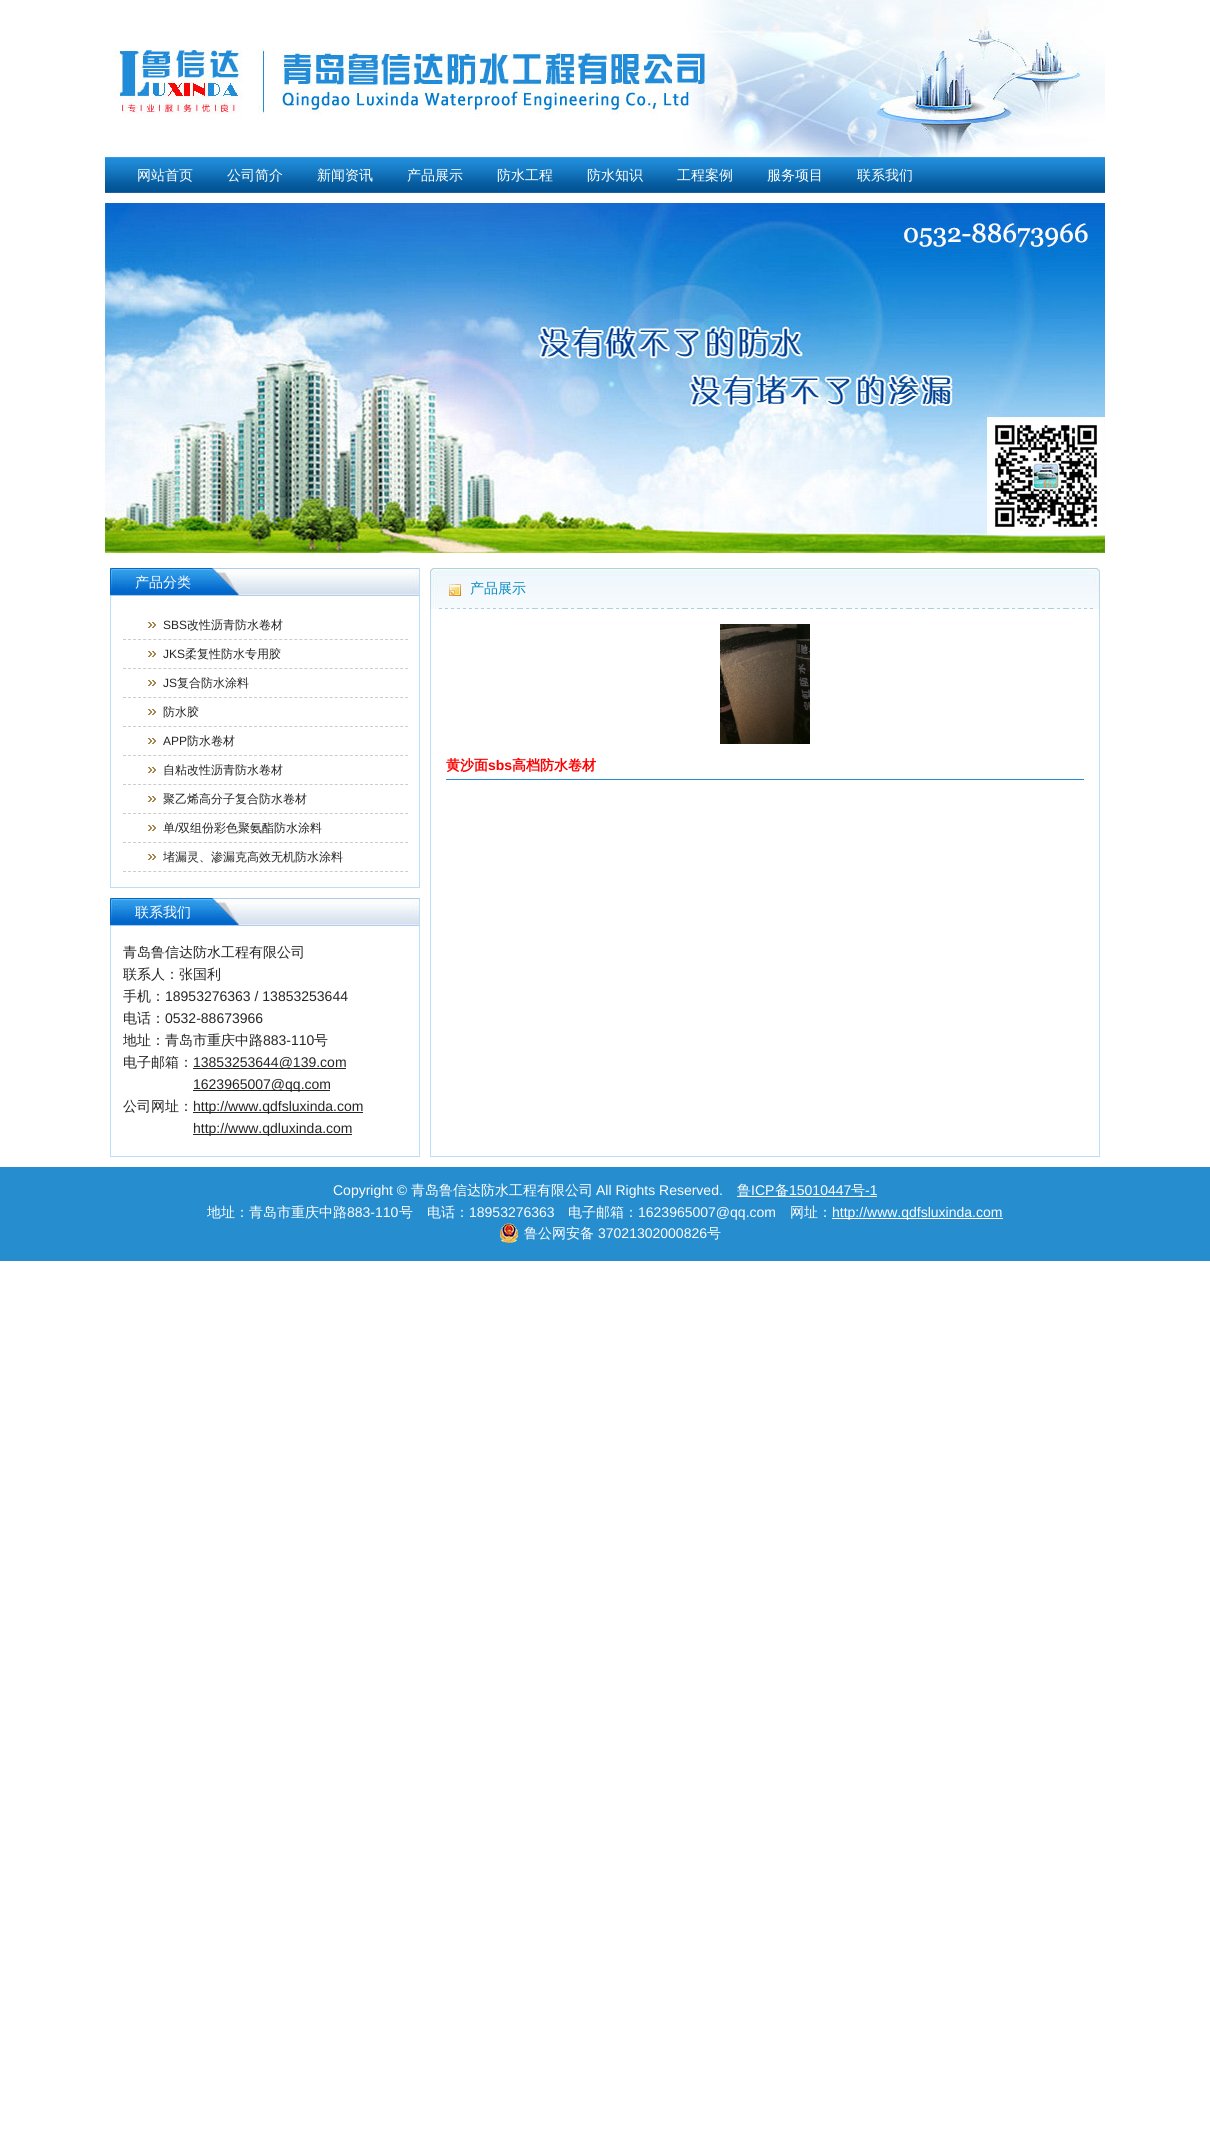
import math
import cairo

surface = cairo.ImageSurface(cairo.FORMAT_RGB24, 1210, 2138)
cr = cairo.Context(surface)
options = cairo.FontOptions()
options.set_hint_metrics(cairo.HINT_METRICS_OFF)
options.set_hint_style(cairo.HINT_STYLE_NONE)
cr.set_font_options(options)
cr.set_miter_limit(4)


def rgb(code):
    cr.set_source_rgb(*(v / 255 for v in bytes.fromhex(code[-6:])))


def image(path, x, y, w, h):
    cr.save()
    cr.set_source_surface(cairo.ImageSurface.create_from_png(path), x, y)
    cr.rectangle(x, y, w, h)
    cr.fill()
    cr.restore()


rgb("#ffffff")
cr.paint()
image("img/1.png", 114, 0, 991, 157)
image("img/2.png", 105, 157, 1000, 36)
image("img/3.png", 105, 203, 1000, 350)
image("img/4.png", 110, 568, 310, 28)
for x, y, w, h, color in [
    (419, 596, 1, 292, "#b9dff9"),
    (110, 887, 310, 1, "#b9dff9"),
    (110, 596, 1, 292, "#b9dff9"),
]:
    rgb(color)
    cr.rectangle(x, y, w, h)
    cr.fill()
image("img/5.png", 148, 622, 8, 6)
cr.new_path()
cr.move_to(123, 639.5)
cr.line_to(408, 639.5)
rgb("#cccccc")
cr.set_line_width(1)
cr.set_dash([3, 2.04])
cr.stroke()
image("img/5.png", 148, 651, 8, 6)
cr.new_path()
cr.move_to(123, 668.5)
cr.line_to(408, 668.5)
cr.stroke()
image("img/5.png", 148, 680, 8, 6)
cr.new_path()
cr.move_to(123, 697.5)
cr.line_to(408, 697.5)
cr.stroke()
image("img/5.png", 148, 709, 8, 6)
cr.new_path()
cr.move_to(123, 726.5)
cr.line_to(408, 726.5)
cr.stroke()
image("img/5.png", 148, 738, 8, 6)
cr.new_path()
cr.move_to(123, 755.5)
cr.line_to(408, 755.5)
cr.stroke()
image("img/5.png", 148, 767, 8, 6)
cr.new_path()
cr.move_to(123, 784.5)
cr.line_to(408, 784.5)
cr.stroke()
image("img/5.png", 148, 796, 8, 6)
cr.new_path()
cr.move_to(123, 813.5)
cr.line_to(408, 813.5)
cr.stroke()
image("img/5.png", 148, 825, 8, 6)
cr.new_path()
cr.move_to(123, 842.5)
cr.line_to(408, 842.5)
cr.stroke()
image("img/5.png", 148, 854, 8, 6)
cr.new_path()
cr.move_to(123, 871.5)
cr.line_to(408, 871.5)
cr.stroke()
image("img/4.png", 110, 898, 310, 28)
for x, y, w, h, color in [
    (419, 926, 1, 231, "#b9dff9"),
    (110, 1156, 310, 1, "#b9dff9"),
    (110, 926, 1, 231, "#b9dff9"),
    (193, 1068, 153, 1, "#252525"),
    (193, 1090, 137, 1, "#252525"),
    (193, 1112, 170, 1, "#252525"),
    (193, 1134, 159, 1, "#252525"),
]:
    rgb(color)
    cr.rectangle(x, y, w, h)
    cr.fill()
image("img/6.png", 430, 568, 670, 41)
for x, y, w, h, color in [
    (1099, 609, 1, 548, "#b9dff9"),
    (430, 1156, 670, 1, "#b9dff9"),
    (430, 609, 1, 548, "#b9dff9"),
]:
    rgb(color)
    cr.rectangle(x, y, w, h)
    cr.fill()
image("img/7.png", 720, 624, 90, 120)
for x, y, w, h, color in [
    (446, 779, 638, 1, "#268cd6"),
    (0, 1167, 1210, 94, "#268dcf"),
    (737, 1196, 140, 1, "#ffffff"),
    (832, 1218, 171, 1, "#ffffff"),
]:
    rgb(color)
    cr.rectangle(x, y, w, h)
    cr.fill()
image("img/8.png", 500, 1223, 18, 20)
cr.select_font_face("WenQuanYi Zen Hei Medium")
cr.set_font_size(14)
for x, y, s in [
    (137, 180, "网站首页"),
    (227, 180, "公司简介"),
    (317, 180, "新闻资讯"),
    (407, 180, "产品展示"),
    (497, 180, "防水工程"),
    (587, 180, "防水知识"),
    (677, 180, "工程案例"),
    (767, 180, "服务项目"),
    (857, 180, "联系我们"),
    (135, 587, "产品分类"),
]:
    cr.move_to(x, y)
    cr.show_text(s)
cr.select_font_face("Liberation Sans")
cr.set_font_size(12)
rgb("#252525")
cr.move_to(163, 629)
cr.show_text("SBS")
cr.select_font_face("WenQuanYi Zen Hei Medium")
cr.move_to(187, 629)
cr.show_text("改性沥青防水卷材")
cr.select_font_face("Liberation Sans")
cr.move_to(163, 658)
cr.show_text("JKS")
cr.select_font_face("WenQuanYi Zen Hei Medium")
cr.move_to(185, 658)
cr.show_text("柔复性防水专用胶")
cr.select_font_face("Liberation Sans")
cr.move_to(163, 687)
cr.show_text("JS")
cr.select_font_face("WenQuanYi Zen Hei Medium")
cr.move_to(177, 687)
cr.show_text("复合防水涂料")
cr.move_to(163, 716)
cr.show_text("防水胶")
cr.select_font_face("Liberation Sans")
cr.move_to(163, 745)
cr.show_text("APP")
cr.select_font_face("WenQuanYi Zen Hei Medium")
for x, y, s in [
    (187, 745, "防水卷材"),
    (163, 774, "自粘改性沥青防水卷材"),
    (163, 803, "聚乙烯高分子复合防水卷材"),
    (163, 832, "单"),
]:
    cr.move_to(x, y)
    cr.show_text(s)
cr.select_font_face("Liberation Sans")
cr.move_to(175, 832)
cr.show_text("/")
cr.select_font_face("WenQuanYi Zen Hei Medium")
cr.move_to(178, 832)
cr.show_text("双组份彩色聚氨酯防水涂料")
cr.move_to(163, 861)
cr.show_text("堵漏灵、渗漏克高效无机防水涂料")
cr.set_font_size(14)
rgb("#ffffff")
cr.move_to(135, 917)
cr.show_text("联系我们")
rgb("#252525")
cr.move_to(123, 957)
cr.show_text("青岛鲁信达防水工程有限公司")
cr.save()
cr.rectangle(123, 941, 285, 200)
cr.clip()
cr.move_to(123, 979)
cr.show_text("联系人：张国利")
cr.restore()
cr.move_to(123, 1001)
cr.show_text("手机：")
cr.select_font_face("Liberation Sans")
cr.move_to(165, 1001)
cr.show_text("18953276363 / 13853253644")
cr.select_font_face("WenQuanYi Zen Hei Medium")
cr.move_to(123, 1023)
cr.show_text("电话：")
cr.select_font_face("Liberation Sans")
cr.move_to(165, 1023)
cr.show_text("0532-88673966")
cr.save()
cr.rectangle(123, 941, 285, 200)
cr.clip()
cr.select_font_face("WenQuanYi Zen Hei Medium")
cr.move_to(123, 1045)
cr.show_text("地址：青岛市重庆中路")
cr.restore()
cr.move_to(263, 1045)
cr.show_text("883-110")
cr.select_font_face("WenQuanYi Zen Hei Medium")
cr.move_to(314, 1045)
cr.show_text("号")
cr.move_to(123, 1067)
cr.show_text("电子邮箱：")
cr.select_font_face("Liberation Sans")
cr.move_to(193, 1067)
cr.show_text("13853253644@139.com")
cr.move_to(193, 1089)
cr.show_text("1623965007@qq.com")
cr.select_font_face("WenQuanYi Zen Hei Medium")
cr.move_to(123, 1111)
cr.show_text("公司网址：")
cr.select_font_face("Liberation Sans")
cr.move_to(193, 1111)
cr.show_text("http://www.qdfsluxinda.com")
cr.move_to(193, 1133)
cr.show_text("http://www.qdluxinda.com")
cr.select_font_face("WenQuanYi Zen Hei Medium")
rgb("#098bc1")
cr.move_to(470, 593)
cr.show_text("产品展示")
cr.select_font_face("WenQuanYi Zen Hei", cairo.FONT_SLANT_NORMAL, cairo.FONT_WEIGHT_BOLD)
rgb("#fc0000")
cr.move_to(446, 770)
cr.show_text("黄沙面")
cr.select_font_face("Liberation Sans", cairo.FONT_SLANT_NORMAL, cairo.FONT_WEIGHT_BOLD)
cr.move_to(488, 770)
cr.show_text("sbs")
cr.select_font_face("WenQuanYi Zen Hei", cairo.FONT_SLANT_NORMAL, cairo.FONT_WEIGHT_BOLD)
cr.move_to(512, 770)
cr.show_text("高档防水卷材")
cr.select_font_face("Liberation Sans")
rgb("#ffffff")
cr.move_to(333, 1195)
cr.show_text("Copyright ©")
cr.select_font_face("WenQuanYi Zen Hei Medium")
cr.move_to(411, 1195)
cr.show_text("青岛鲁信达防水工程有限公司")
cr.select_font_face("Liberation Sans")
cr.move_to(596, 1195)
cr.show_text("All Rights Reserved.")
cr.select_font_face("WenQuanYi Zen Hei Medium")
cr.move_to(737, 1195)
cr.show_text("鲁")
cr.select_font_face("Liberation Sans")
cr.move_to(751, 1195)
cr.show_text("ICP")
cr.select_font_face("WenQuanYi Zen Hei Medium")
cr.move_to(775, 1195)
cr.show_text("备")
cr.select_font_face("Liberation Sans")
cr.move_to(789, 1195)
cr.show_text("15010447")
cr.select_font_face("WenQuanYi Zen Hei Medium")
cr.move_to(851, 1195)
cr.show_text("号")
cr.select_font_face("Liberation Sans")
cr.move_to(865, 1195)
cr.show_text("-1")
cr.select_font_face("WenQuanYi Zen Hei Medium")
cr.move_to(207, 1217)
cr.show_text("地址：青岛市重庆中路")
cr.select_font_face("Liberation Sans")
cr.move_to(347, 1217)
cr.show_text("883-110")
cr.select_font_face("WenQuanYi Zen Hei Medium")
cr.move_to(399, 1217)
cr.show_text("号　电话：")
cr.select_font_face("Liberation Sans")
cr.move_to(469, 1217)
cr.show_text("18953276363")
cr.select_font_face("WenQuanYi Zen Hei Medium")
cr.move_to(568, 1217)
cr.show_text("电子邮箱：")
cr.select_font_face("Liberation Sans")
cr.move_to(638, 1217)
cr.show_text("1623965007@qq.com")
cr.select_font_face("WenQuanYi Zen Hei Medium")
cr.move_to(790, 1217)
cr.show_text("网址：")
cr.select_font_face("Liberation Sans")
cr.move_to(832, 1217)
cr.show_text("http://www.qdfsluxinda.com")
cr.select_font_face("WenQuanYi Zen Hei Medium")
cr.move_to(524, 1238)
cr.show_text("鲁公网安备")
cr.select_font_face("Liberation Sans")
cr.move_to(598, 1238)
cr.show_text("37021302000826")
cr.select_font_face("WenQuanYi Zen Hei Medium")
cr.move_to(707, 1238)
cr.show_text("号")
surface.write_to_png("page.png")
